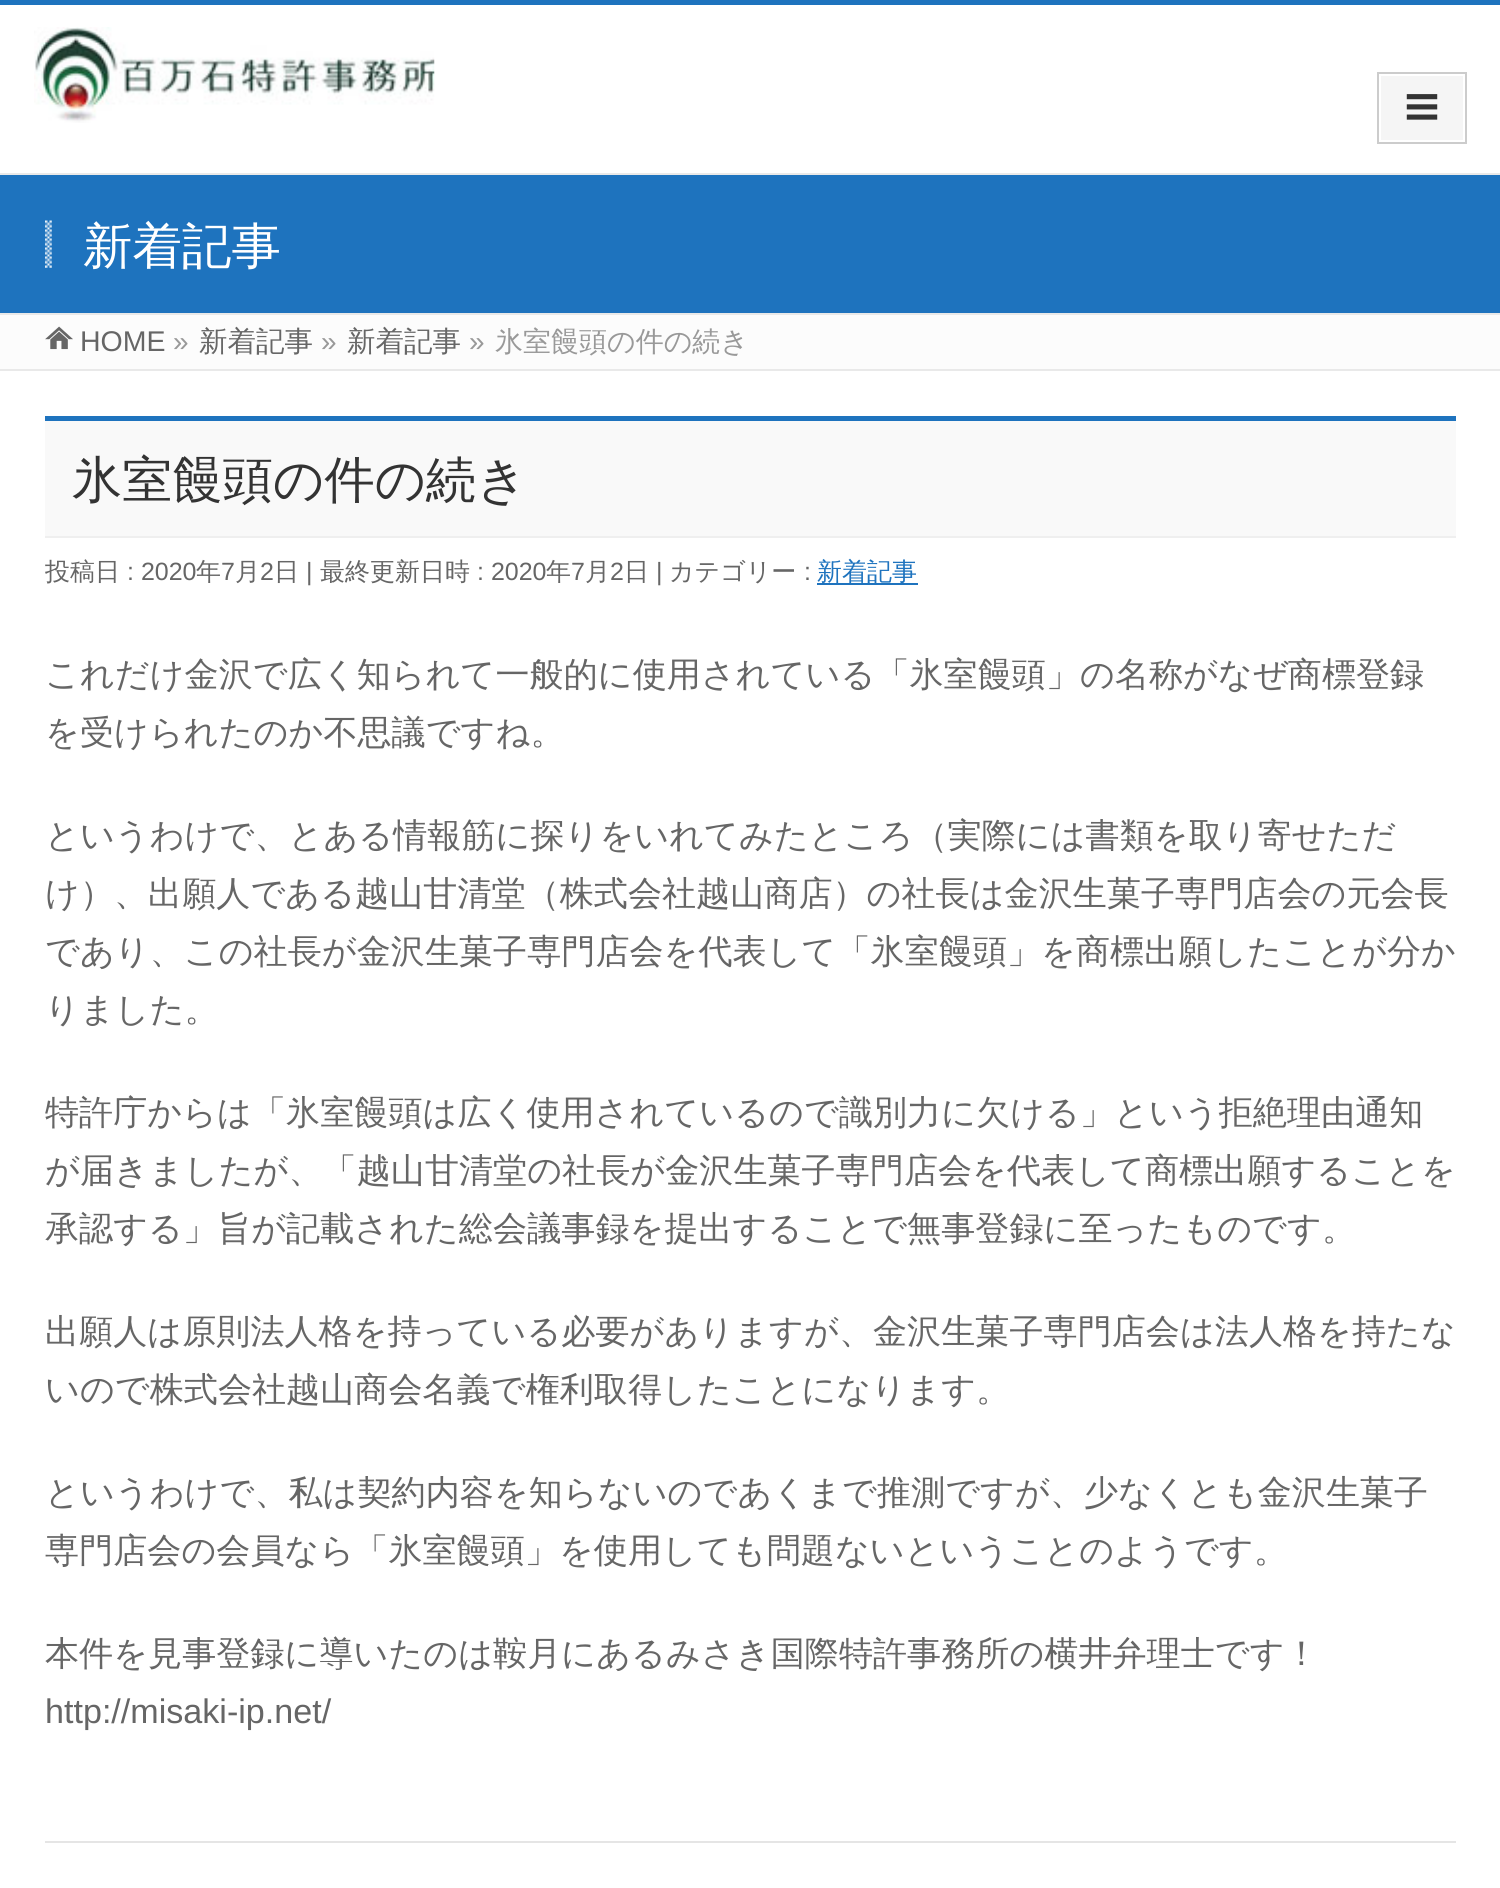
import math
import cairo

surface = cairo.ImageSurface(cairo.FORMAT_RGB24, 1500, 1888)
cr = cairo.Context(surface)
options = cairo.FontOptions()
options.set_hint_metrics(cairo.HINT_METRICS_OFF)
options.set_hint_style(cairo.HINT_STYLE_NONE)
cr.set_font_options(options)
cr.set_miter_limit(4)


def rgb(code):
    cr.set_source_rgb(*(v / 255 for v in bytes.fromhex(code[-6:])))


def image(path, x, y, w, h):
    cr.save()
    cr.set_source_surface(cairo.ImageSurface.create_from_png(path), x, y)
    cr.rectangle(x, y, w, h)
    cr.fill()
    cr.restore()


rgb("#ffffff")
cr.paint()
rgb("#1e73be")
cr.rectangle(0, 0, 1500, 5)
cr.fill()
image("img/1.png", 34, 27, 401, 96)
rgb("#f5f5f5")
cr.rectangle(1381, 76, 82, 64)
cr.fill()
cr.rectangle(1378, 73, 88, 70)
rgb("#cccccc")
cr.stroke()
image("img/2.png", 1406, 94, 32, 26)
for x, y, w, h, color in [
    (0, 175, 1500, 138, "#1e73be"),
    (0, 173, 1500, 2, "#e9e9e9"),
    (0, 313, 1500, 2, "#e9e9e9"),
]:
    rgb(color)
    cr.rectangle(x, y, w, h)
    cr.fill()
image("img/3.png", 45, 220, 7, 48)
rgb("#fcfcfc")
cr.rectangle(0, 315, 1500, 54)
cr.fill()
image("img/4.png", 45, 326, 28, 24)
for x, y, w, h, color in [
    (0, 369, 1500, 2, "#e9e9e9"),
    (45, 421, 1411, 115, "#f9f9f9"),
    (45, 416, 1411, 5, "#1e73be"),
    (45, 536, 1411, 2, "#efefef"),
    (817, 583, 101, 2, "#1e73be"),
    (45, 1841, 1411, 2, "#e5e5e5"),
]:
    rgb(color)
    cr.rectangle(x, y, w, h)
    cr.fill()
cr.select_font_face("WenQuanYi Zen Hei Medium")
cr.set_font_size(49.5)
rgb("#ffffff")
cr.move_to(83, 263)
cr.show_text("新着記事")
cr.select_font_face("Liberation Sans")
cr.set_font_size(28.5)
rgb("#666666")
cr.move_to(80, 351)
cr.show_text("HOME")
cr.set_font_size(28)
rgb("#999999")
cr.move_to(173, 351)
cr.show_text("»")
cr.select_font_face("WenQuanYi Zen Hei Medium")
cr.set_font_size(28.5)
rgb("#666666")
cr.move_to(199, 351)
cr.show_text("新着記事")
cr.select_font_face("Liberation Sans")
cr.set_font_size(28)
rgb("#999999")
cr.move_to(321, 351)
cr.show_text("»")
cr.select_font_face("WenQuanYi Zen Hei Medium")
cr.set_font_size(28.5)
rgb("#666666")
cr.move_to(347, 351)
cr.show_text("新着記事")
cr.select_font_face("Liberation Sans")
cr.set_font_size(28)
rgb("#999999")
cr.move_to(469, 351)
cr.show_text("»")
cr.select_font_face("WenQuanYi Zen Hei Medium")
cr.move_to(495, 351)
cr.show_text("氷室饅頭の件の続き")
cr.set_font_size(50.25)
rgb("#333333")
cr.move_to(72, 497)
cr.show_text("氷室饅頭の件の続き")
cr.set_font_size(25)
rgb("#666666")
cr.move_to(45, 580)
cr.show_text("投稿日")
cr.select_font_face("Liberation Sans")
cr.move_to(127, 580)
cr.show_text(": 2020")
cr.select_font_face("WenQuanYi Zen Hei Medium")
cr.move_to(196, 580)
cr.show_text("年")
cr.select_font_face("Liberation Sans")
cr.move_to(221, 580)
cr.show_text("7")
cr.select_font_face("WenQuanYi Zen Hei Medium")
cr.move_to(235, 580)
cr.show_text("月")
cr.select_font_face("Liberation Sans")
cr.move_to(260, 580)
cr.show_text("2")
cr.select_font_face("WenQuanYi Zen Hei Medium")
cr.move_to(274, 580)
cr.show_text("日")
cr.select_font_face("Liberation Sans")
cr.move_to(306, 580)
cr.show_text("|")
cr.select_font_face("WenQuanYi Zen Hei Medium")
cr.move_to(320, 580)
cr.show_text("最終更新日時")
cr.select_font_face("Liberation Sans")
cr.move_to(477, 580)
cr.show_text(": 2020")
cr.select_font_face("WenQuanYi Zen Hei Medium")
cr.move_to(546, 580)
cr.show_text("年")
cr.select_font_face("Liberation Sans")
cr.move_to(571, 580)
cr.show_text("7")
cr.select_font_face("WenQuanYi Zen Hei Medium")
cr.move_to(585, 580)
cr.show_text("月")
cr.select_font_face("Liberation Sans")
cr.move_to(610, 580)
cr.show_text("2")
cr.select_font_face("WenQuanYi Zen Hei Medium")
cr.move_to(624, 580)
cr.show_text("日")
cr.select_font_face("Liberation Sans")
cr.move_to(656, 580)
cr.show_text("|")
cr.select_font_face("WenQuanYi Zen Hei Medium")
cr.move_to(669, 580)
cr.show_text("カテゴリー")
cr.select_font_face("Liberation Sans")
cr.move_to(804, 580)
cr.show_text(":")
cr.select_font_face("WenQuanYi Zen Hei Medium")
rgb("#1e73be")
cr.move_to(817, 580)
cr.show_text("新着記事")
cr.set_font_size(34.1)
rgb("#666666")
for x, y, s in [
    (45, 686, "これだけ金沢で広く知られて一般的に使用されている「氷室饅頭」の名称がなぜ商標登録"),
    (45, 744, "を受けられたのか不思議ですね。"),
    (45, 847, "というわけで、とある情報筋に探りをいれてみたところ（実際には書類を取り寄せただ"),
    (45, 905, "け）、出願人である越山甘清堂（株式会社越山商店）の社長は金沢生菓子専門店会の元会長"),
    (45, 963, "であり、この社長が金沢生菓子専門店会を代表して「氷室饅頭」を商標出願したことが分か"),
    (45, 1021, "りました。"),
    (45, 1124, "特許庁からは「氷室饅頭は広く使用されているので識別力に欠ける」という拒絶理由通知"),
    (45, 1182, "が届きましたが、「越山甘清堂の社長が金沢生菓子専門店会を代表して商標出願することを"),
    (45, 1240, "承認する」旨が記載された総会議事録を提出することで無事登録に至ったものです。"),
    (45, 1343, "出願人は原則法人格を持っている必要がありますが、金沢生菓子専門店会は法人格を持たな"),
    (45, 1401, "いので株式会社越山商会名義で権利取得したことになります。"),
    (45, 1504, "というわけで、私は契約内容を知らないのであくまで推測ですが、少なくとも金沢生菓子"),
    (45, 1562, "専門店会の会員なら「氷室饅頭」を使用しても問題ないということのようです。"),
    (45, 1665, "本件を見事登録に導いたのは鞍月にあるみさき国際特許事務所の横井弁理士です！"),
]:
    cr.move_to(x, y)
    cr.show_text(s)
cr.select_font_face("Liberation Sans")
cr.move_to(45, 1723)
cr.show_text("http://misaki-ip.net/")
surface.write_to_png("page.png")
